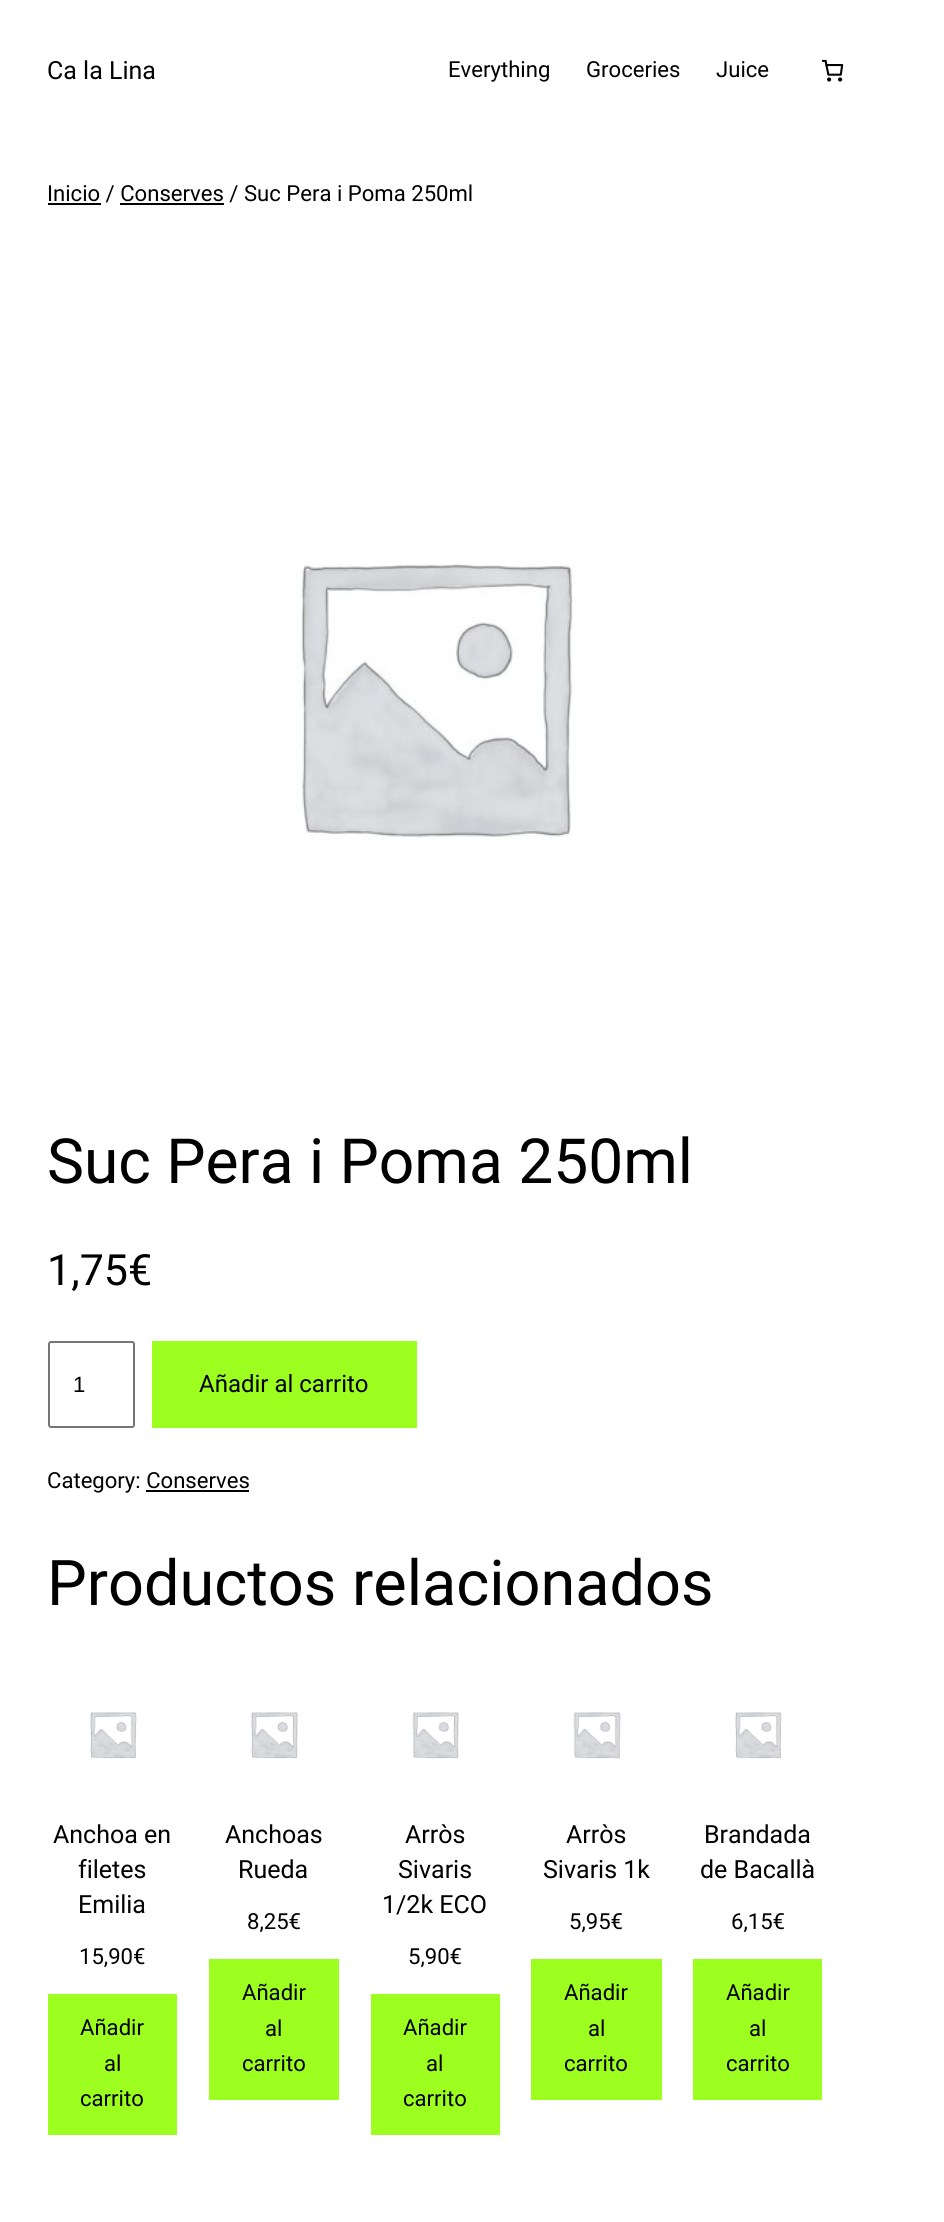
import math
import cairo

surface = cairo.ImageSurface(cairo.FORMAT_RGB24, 944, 2222)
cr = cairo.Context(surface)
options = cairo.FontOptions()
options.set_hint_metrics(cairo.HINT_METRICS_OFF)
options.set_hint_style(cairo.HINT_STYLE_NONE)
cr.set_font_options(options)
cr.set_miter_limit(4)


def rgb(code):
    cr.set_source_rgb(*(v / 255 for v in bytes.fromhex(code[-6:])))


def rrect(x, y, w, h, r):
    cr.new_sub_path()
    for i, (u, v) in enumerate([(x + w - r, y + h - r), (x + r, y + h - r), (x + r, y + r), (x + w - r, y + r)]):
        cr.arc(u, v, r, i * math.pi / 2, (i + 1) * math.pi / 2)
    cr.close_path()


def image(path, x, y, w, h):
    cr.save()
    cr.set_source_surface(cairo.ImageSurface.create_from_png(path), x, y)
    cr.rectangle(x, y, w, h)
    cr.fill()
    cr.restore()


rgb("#ffffff")
cr.paint()
image("img/1.png", 821, 59, 23, 23)
rgb("#000000")
cr.rectangle(48, 203, 53, 2)
cr.fill()
cr.rectangle(120, 203, 104, 2)
cr.fill()
image("img/2.png", 295, 563, 280, 278)
rrect(49, 1342, 85, 85, 2)
rgb("#767676")
cr.stroke()
rgb("#9dff20")
cr.rectangle(152, 1341, 265, 87)
cr.fill()
rgb("#000000")
cr.rectangle(146, 1490, 103, 2)
cr.fill()
image("img/3.png", 90, 1712, 47, 47)
rgb("#9dff20")
cr.rectangle(48, 1994, 129, 141)
cr.fill()
image("img/4.png", 251, 1712, 47, 47)
cr.rectangle(209, 1959, 130, 141)
cr.fill()
image("img/5.png", 412, 1712, 47, 47)
cr.rectangle(371, 1994, 129, 141)
cr.fill()
image("img/6.png", 573, 1712, 48, 47)
cr.rectangle(531, 1959, 131, 141)
cr.fill()
image("img/7.png", 735, 1712, 47, 47)
cr.rectangle(693, 1959, 129, 141)
cr.fill()
cr.select_font_face("Roboto")
cr.set_font_size(25)
rgb("#000000")
cr.move_to(47, 79)
cr.show_text("Ca la Lina")
cr.set_font_size(22.1)
for x, y, s in [
    (448, 77, "Everything"),
    (586, 77, "Groceries"),
    (716, 77, "Juice"),
    (47, 201, "Inicio / Conserves / Suc Pera i Poma 250ml"),
]:
    cr.move_to(x, y)
    cr.show_text(s)
cr.set_font_size(62.25)
cr.move_to(47, 1183)
cr.show_text("Suc Pera i Poma 250ml")
cr.set_font_size(43)
cr.move_to(47, 1285)
cr.show_text("1,75€")
cr.select_font_face("Liberation Sans")
cr.set_font_size(22.1)
cr.move_to(73, 1392)
cr.show_text("1")
cr.select_font_face("Roboto")
cr.set_font_size(24)
cr.move_to(199, 1392)
cr.show_text("Añadir al carrito")
cr.set_font_size(22.1)
cr.move_to(47, 1488)
cr.show_text("Category: Conserves")
cr.set_font_size(63)
cr.move_to(47, 1605)
cr.show_text("Productos relacionados")
cr.set_font_size(25)
for x, y, s in [
    (53, 1843, "Anchoa en"),
    (78, 1878, "filetes"),
    (78, 1913, "Emilia"),
]:
    cr.move_to(x, y)
    cr.show_text(s)
cr.set_font_size(22.1)
for x, y, s in [
    (79, 1964, "15,90€"),
    (80, 2035, "Añadir"),
    (104, 2071, "al"),
    (80, 2106, "carrito"),
]:
    cr.move_to(x, y)
    cr.show_text(s)
cr.set_font_size(25)
cr.move_to(225, 1843)
cr.show_text("Anchoas")
cr.move_to(238, 1878)
cr.show_text("Rueda")
cr.set_font_size(22.1)
for x, y, s in [
    (247, 1929, "8,25€"),
    (242, 2000, "Añadir"),
    (265, 2036, "al"),
    (242, 2071, "carrito"),
]:
    cr.move_to(x, y)
    cr.show_text(s)
cr.set_font_size(25)
for x, y, s in [
    (405, 1843, "Arròs"),
    (398, 1878, "Sivaris"),
    (382, 1913, "1/2k ECO"),
]:
    cr.move_to(x, y)
    cr.show_text(s)
cr.set_font_size(22.1)
for x, y, s in [
    (408, 1964, "5,90€"),
    (403, 2035, "Añadir"),
    (426, 2071, "al"),
    (403, 2106, "carrito"),
]:
    cr.move_to(x, y)
    cr.show_text(s)
cr.set_font_size(25)
cr.move_to(566, 1843)
cr.show_text("Arròs")
cr.move_to(543, 1878)
cr.show_text("Sivaris 1k")
cr.set_font_size(22.1)
for x, y, s in [
    (569, 1929, "5,95€"),
    (564, 2000, "Añadir"),
    (588, 2036, "al"),
    (564, 2071, "carrito"),
]:
    cr.move_to(x, y)
    cr.show_text(s)
cr.set_font_size(25)
cr.move_to(704, 1843)
cr.show_text("Brandada")
cr.move_to(700, 1878)
cr.show_text("de Bacallà")
cr.set_font_size(22.1)
for x, y, s in [
    (731, 1929, "6,15€"),
    (726, 2000, "Añadir"),
    (749, 2036, "al"),
    (726, 2071, "carrito"),
]:
    cr.move_to(x, y)
    cr.show_text(s)
surface.write_to_png("page.png")
